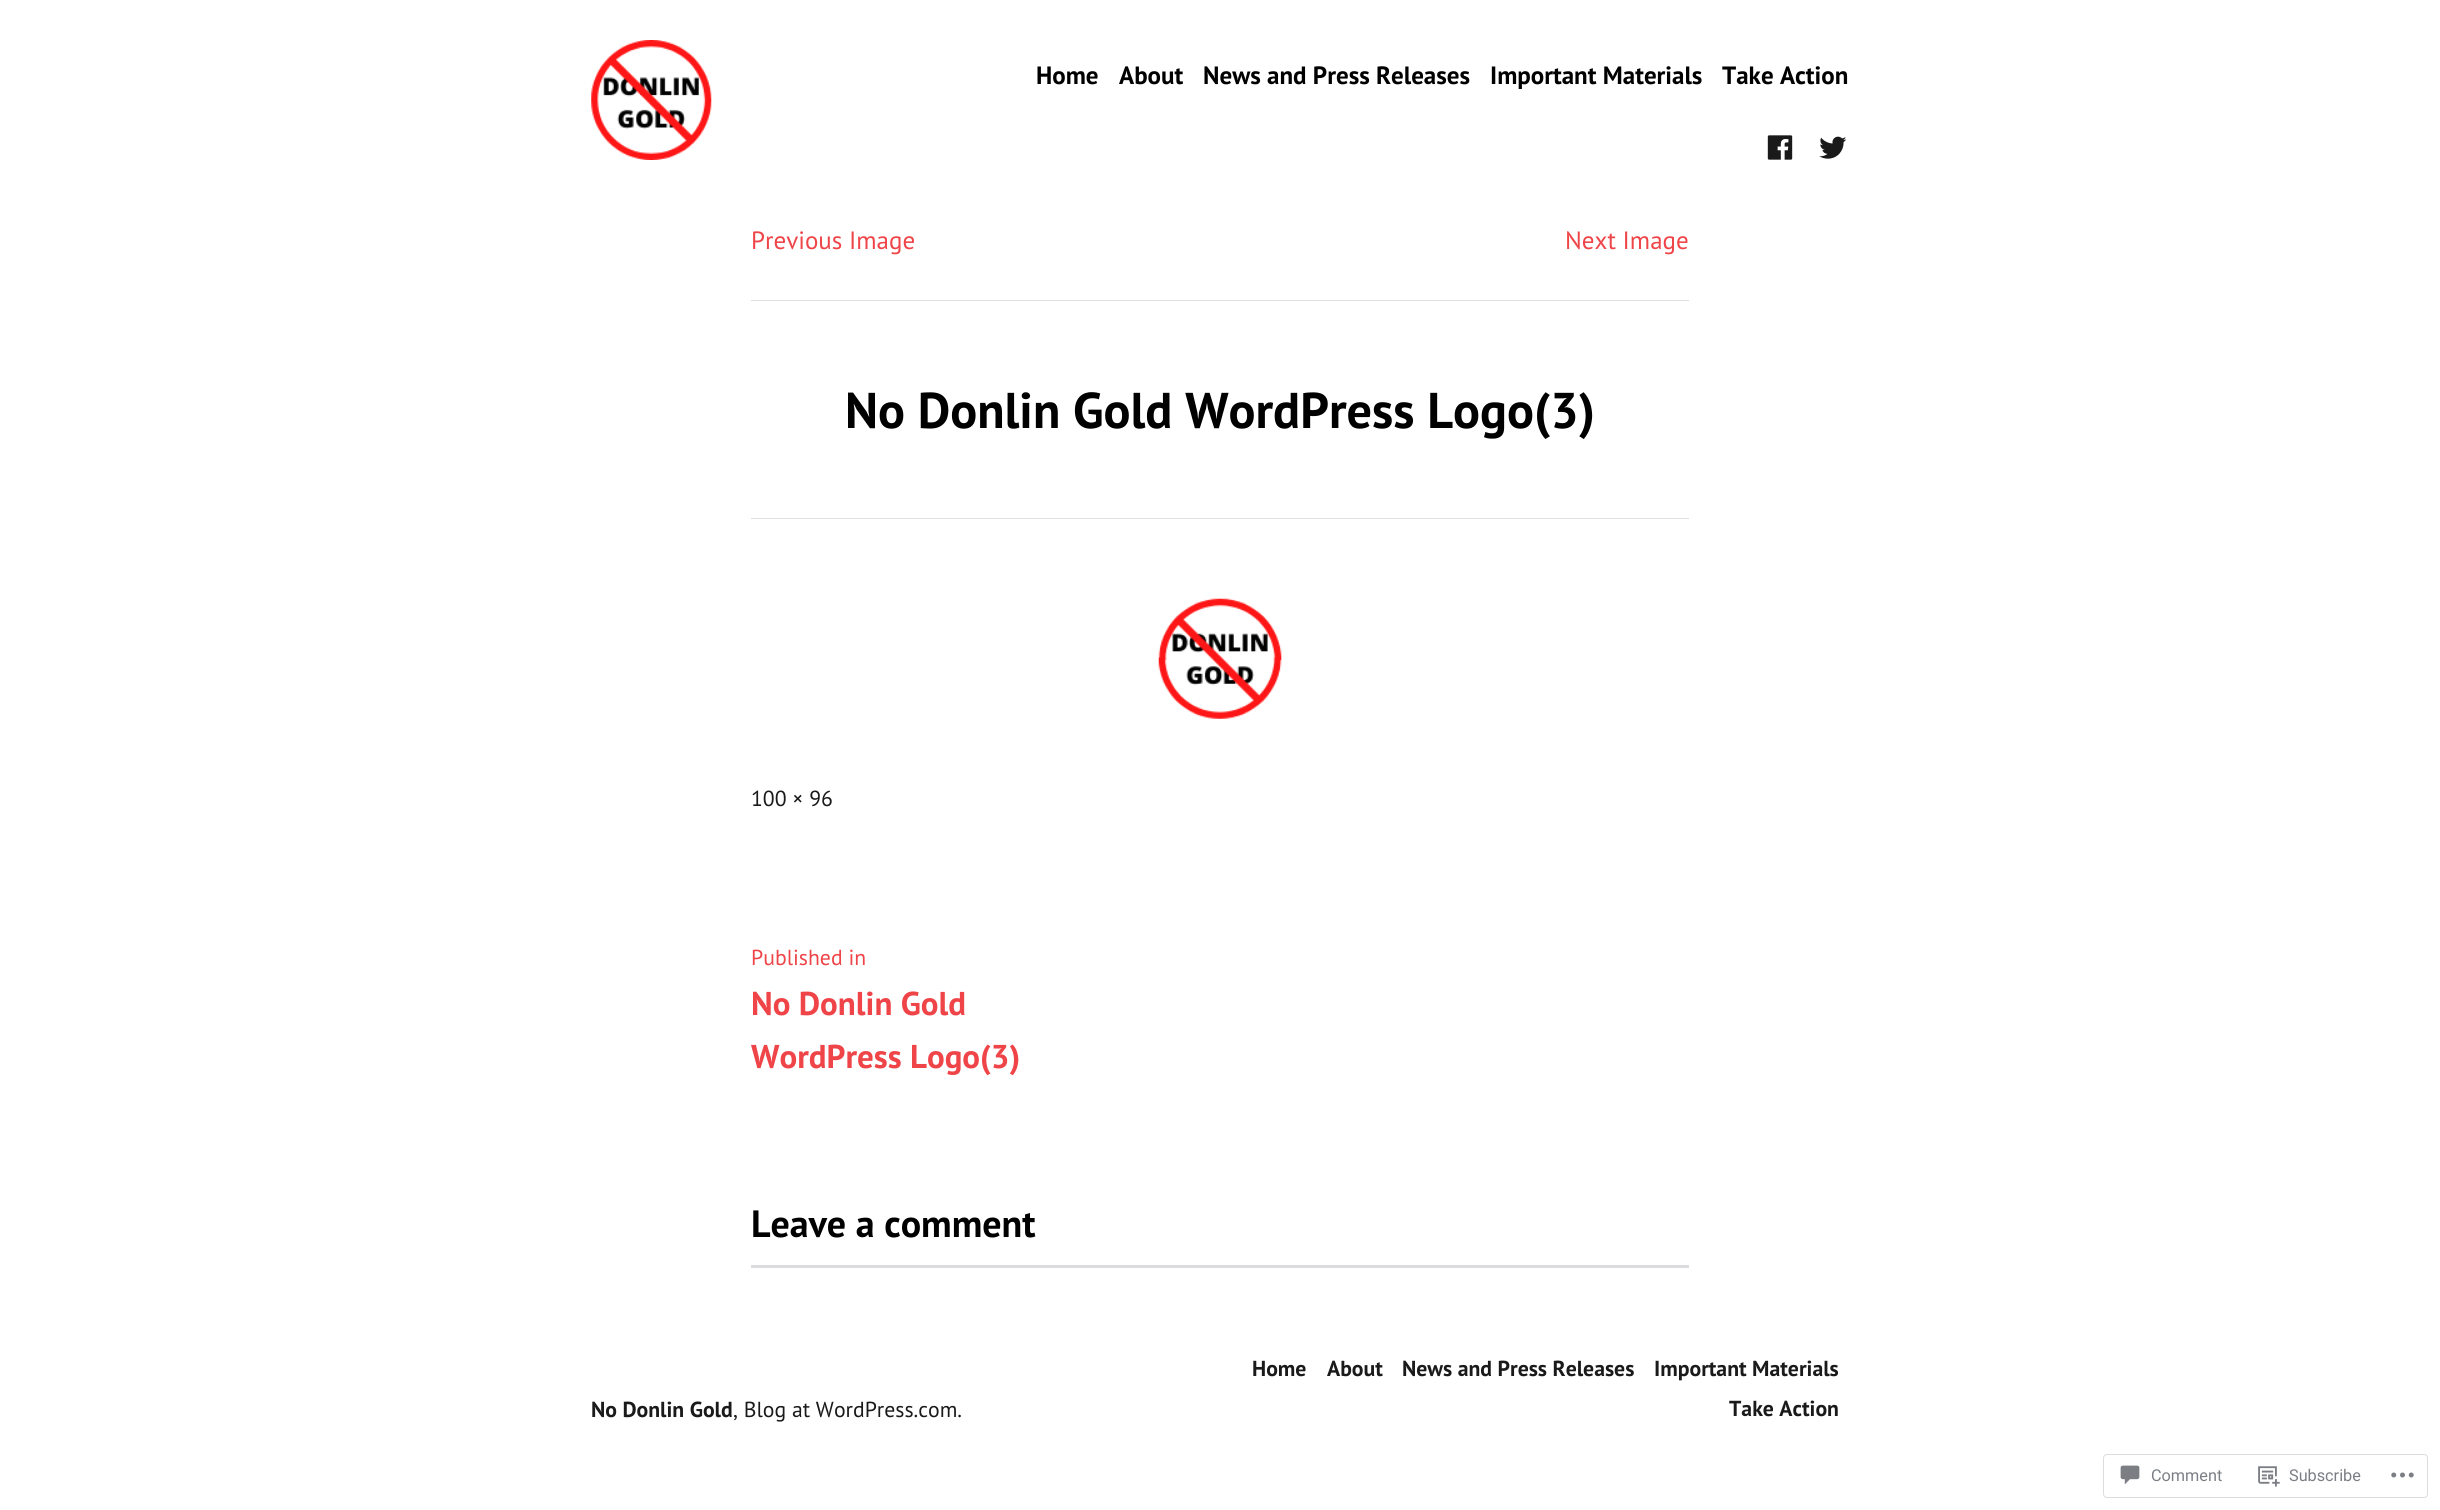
import math
import cairo

surface = cairo.ImageSurface(cairo.FORMAT_RGB24, 2440, 1510)
cr = cairo.Context(surface)
options = cairo.FontOptions()
options.set_hint_metrics(cairo.HINT_METRICS_OFF)
options.set_hint_style(cairo.HINT_STYLE_NONE)
cr.set_font_options(options)
cr.set_miter_limit(4)


def rgb(code):
    cr.set_source_rgb(*(v / 255 for v in bytes.fromhex(code[-6:])))


def rrect(x, y, w, h, r):
    cr.new_sub_path()
    for i, (u, v) in enumerate([(x + w - r, y + h - r), (x + r, y + h - r), (x + r, y + r), (x + w - r, y + r)]):
        cr.arc(u, v, r, i * math.pi / 2, (i + 1) * math.pi / 2)
    cr.close_path()


def image(path, x, y, w, h):
    cr.save()
    cr.set_source_surface(cairo.ImageSurface.create_from_png(path), x, y)
    cr.rectangle(x, y, w, h)
    cr.fill()
    cr.restore()


rgb("#ffffff")
cr.paint()
image("img/1.png", 591, 40, 121, 120)
image("img/2.png", 1767, 135, 26, 25)
image("img/3.png", 1819, 136, 28, 23)
rgb("#dfdfdf")
cr.rectangle(751, 300, 938, 1)
cr.fill()
cr.rectangle(751, 518, 938, 1)
cr.fill()
image("img/4.png", 1158, 598, 124, 121)
rgb("#dcdcde")
cr.rectangle(751, 1265, 938, 3)
cr.fill()
rrect(2103.5, 1454.5, 324, 43, 3.5)
rgb("#dddddf")
cr.set_line_width(1)
cr.stroke()
image("img/5.png", 2120, 1465, 20, 20)
image("img/6.png", 2258, 1466, 22, 21)
image("img/7.png", 2391, 1472, 23, 6)
cr.select_font_face("PT Sans", cairo.FONT_SLANT_NORMAL, cairo.FONT_WEIGHT_BOLD)
cr.set_font_size(25)
rgb("#000000")
for x, y, s in [
    (1036, 84, "Home"),
    (1119, 84, "About"),
    (1203, 84, "News and Press Releases"),
    (1490, 84, "Important Materials"),
    (1722, 84, "Take Action"),
]:
    cr.move_to(x, y)
    cr.show_text(s)
cr.select_font_face("PT Sans")
rgb("#ef4448")
cr.move_to(751, 249)
cr.show_text("Previous Image")
cr.move_to(1565, 249)
cr.show_text("Next Image")
cr.select_font_face("PT Sans", cairo.FONT_SLANT_NORMAL, cairo.FONT_WEIGHT_BOLD)
cr.set_font_size(50.25)
rgb("#000000")
cr.move_to(845, 428)
cr.show_text("No Donlin Gold WordPress Logo(3)")
cr.select_font_face("PT Sans")
cr.set_font_size(21.75)
rgb("#1a1a1a")
cr.move_to(751, 806)
cr.show_text("100 × 96")
rgb("#ef4448")
cr.move_to(751, 965)
cr.show_text("Published in")
cr.select_font_face("PT Sans", cairo.FONT_SLANT_NORMAL, cairo.FONT_WEIGHT_BOLD)
cr.set_font_size(33)
cr.move_to(751, 1015)
cr.show_text("No Donlin Gold")
cr.move_to(751, 1068)
cr.show_text("WordPress Logo(3)")
cr.set_font_size(38)
rgb("#000000")
cr.move_to(751, 1237)
cr.show_text("Leave a comment")
cr.set_font_size(21.75)
rgb("#1a1a1a")
cr.move_to(591, 1417)
cr.show_text("No Donlin Gold")
cr.select_font_face("PT Sans")
cr.move_to(733, 1417)
cr.show_text(", Blog at WordPress.com.")
cr.select_font_face("PT Sans", cairo.FONT_SLANT_NORMAL, cairo.FONT_WEIGHT_BOLD)
for x, y, s in [
    (1252, 1376, "Home"),
    (1327, 1376, "About"),
    (1402, 1376, "News and Press Releases"),
    (1654, 1376, "Important Materials"),
    (1729, 1416, "Take Action"),
]:
    cr.move_to(x, y)
    cr.show_text(s)
cr.select_font_face("Roboto")
cr.set_font_size(16.25)
rgb("#7b7f85")
cr.move_to(2151, 1481)
cr.show_text("Comment")
cr.move_to(2289, 1481)
cr.show_text("Subscribe")
surface.write_to_png("page.png")
